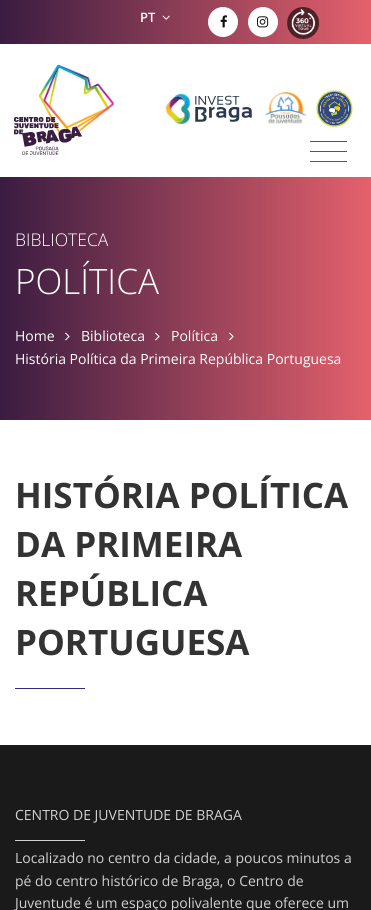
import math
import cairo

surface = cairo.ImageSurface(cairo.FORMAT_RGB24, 371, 910)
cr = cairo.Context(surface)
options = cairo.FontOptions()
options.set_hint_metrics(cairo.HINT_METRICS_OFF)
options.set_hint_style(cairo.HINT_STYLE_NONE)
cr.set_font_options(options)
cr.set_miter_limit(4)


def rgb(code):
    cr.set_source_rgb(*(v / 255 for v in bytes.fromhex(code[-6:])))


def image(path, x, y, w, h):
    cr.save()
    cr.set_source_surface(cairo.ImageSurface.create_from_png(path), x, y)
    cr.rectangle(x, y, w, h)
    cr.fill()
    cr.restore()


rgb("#ffffff")
cr.paint()
gradient = cairo.LinearGradient(0, 22, 371, 22)
gradient.add_color_stop_rgba(0, 0.227, 0.11, 0.255, 1)
gradient.add_color_stop_rgba(1, 0.894, 0.38, 0.424, 1)
cr.set_source(gradient)
cr.rectangle(0, 0, 371, 44)
cr.fill()
image("img/1.png", 162, 15, 8, 5)
rgb("#ffffff")
cr.arc(223, 22, 15, 0, 2 * math.pi)
cr.fill()
image("img/2.png", 220, 15, 7, 13)
cr.arc(263, 22, 15, 0, 2 * math.pi)
cr.fill()
image("img/3.png", 257, 16, 12, 12)
image("img/4.png", 287, 7, 32, 32)
image("img/5.png", 14, 65, 100, 90)
for x, y, w, h, color in [
    (310, 141, 37, 1, "#555555"),
    (310, 151, 37, 1, "#555555"),
    (310, 161, 37, 1, "#555555"),
]:
    rgb(color)
    cr.rectangle(x, y, w, h)
    cr.fill()
image("img/6.png", 165, 93, 87, 31)
image("img/7.png", 264, 91, 43, 33)
image("img/8.png", 316, 90, 37, 37)
gradient = cairo.LinearGradient(0, 299, 371, 299)
gradient.add_color_stop_rgba(0, 0.227, 0.11, 0.255, 1)
gradient.add_color_stop_rgba(1, 0.894, 0.38, 0.424, 1)
cr.set_source(gradient)
cr.rectangle(0, 177, 371, 243)
cr.fill()
image("img/9.png", 65, 332, 5, 9)
image("img/10.png", 155, 332, 5, 9)
image("img/11.png", 229, 332, 5, 9)
for x, y, w, h, color in [
    (15, 688, 70, 1, "#362880"),
    (0, 745, 371, 165, "#1a1a1a"),
    (15, 840, 70, 1, "#d1d1d1"),
]:
    rgb(color)
    cr.rectangle(x, y, w, h)
    cr.fill()
cr.select_font_face("Open Sans SemiBold")
cr.set_font_size(13)
rgb("#ffffff")
cr.move_to(140, 22)
cr.show_text("PT")
cr.select_font_face("Open Sans Light")
cr.set_font_size(17.5)
cr.move_to(15, 246)
cr.show_text("BIBLIOTECA")
cr.set_font_size(35)
cr.move_to(15, 294)
cr.show_text("POLÍTICA")
cr.select_font_face("Open Sans")
cr.set_font_size(14)
for x, y, s in [
    (15, 341, "Home"),
    (81, 341, "Biblioteca"),
    (171, 341, "Política"),
    (15, 364, "História Política da Primeira República Portuguesa"),
]:
    cr.move_to(x, y)
    cr.show_text(s)
cr.select_font_face("Open Sans", cairo.FONT_SLANT_NORMAL, cairo.FONT_WEIGHT_BOLD)
cr.set_font_size(35)
rgb("#333333")
for x, y, s in [
    (15, 508, "HISTÓRIA POLÍTICA"),
    (15, 557, "DA PRIMEIRA"),
    (15, 606, "REPÚBLICA"),
    (15, 655, "PORTUGUESA"),
]:
    cr.move_to(x, y)
    cr.show_text(s)
cr.select_font_face("Open Sans")
cr.set_font_size(14)
rgb("#d1d1d1")
for x, y, s in [
    (15, 820, "CENTRO DE JUVENTUDE DE BRAGA"),
    (15, 863, "Localizado no centro da cidade, a poucos minutos a"),
    (15, 886, "pé do centro histórico de Braga, o Centro de"),
    (15, 908, "Juventude é um espaço polivalente que oferece um"),
]:
    cr.move_to(x, y)
    cr.show_text(s)
surface.write_to_png("page.png")
